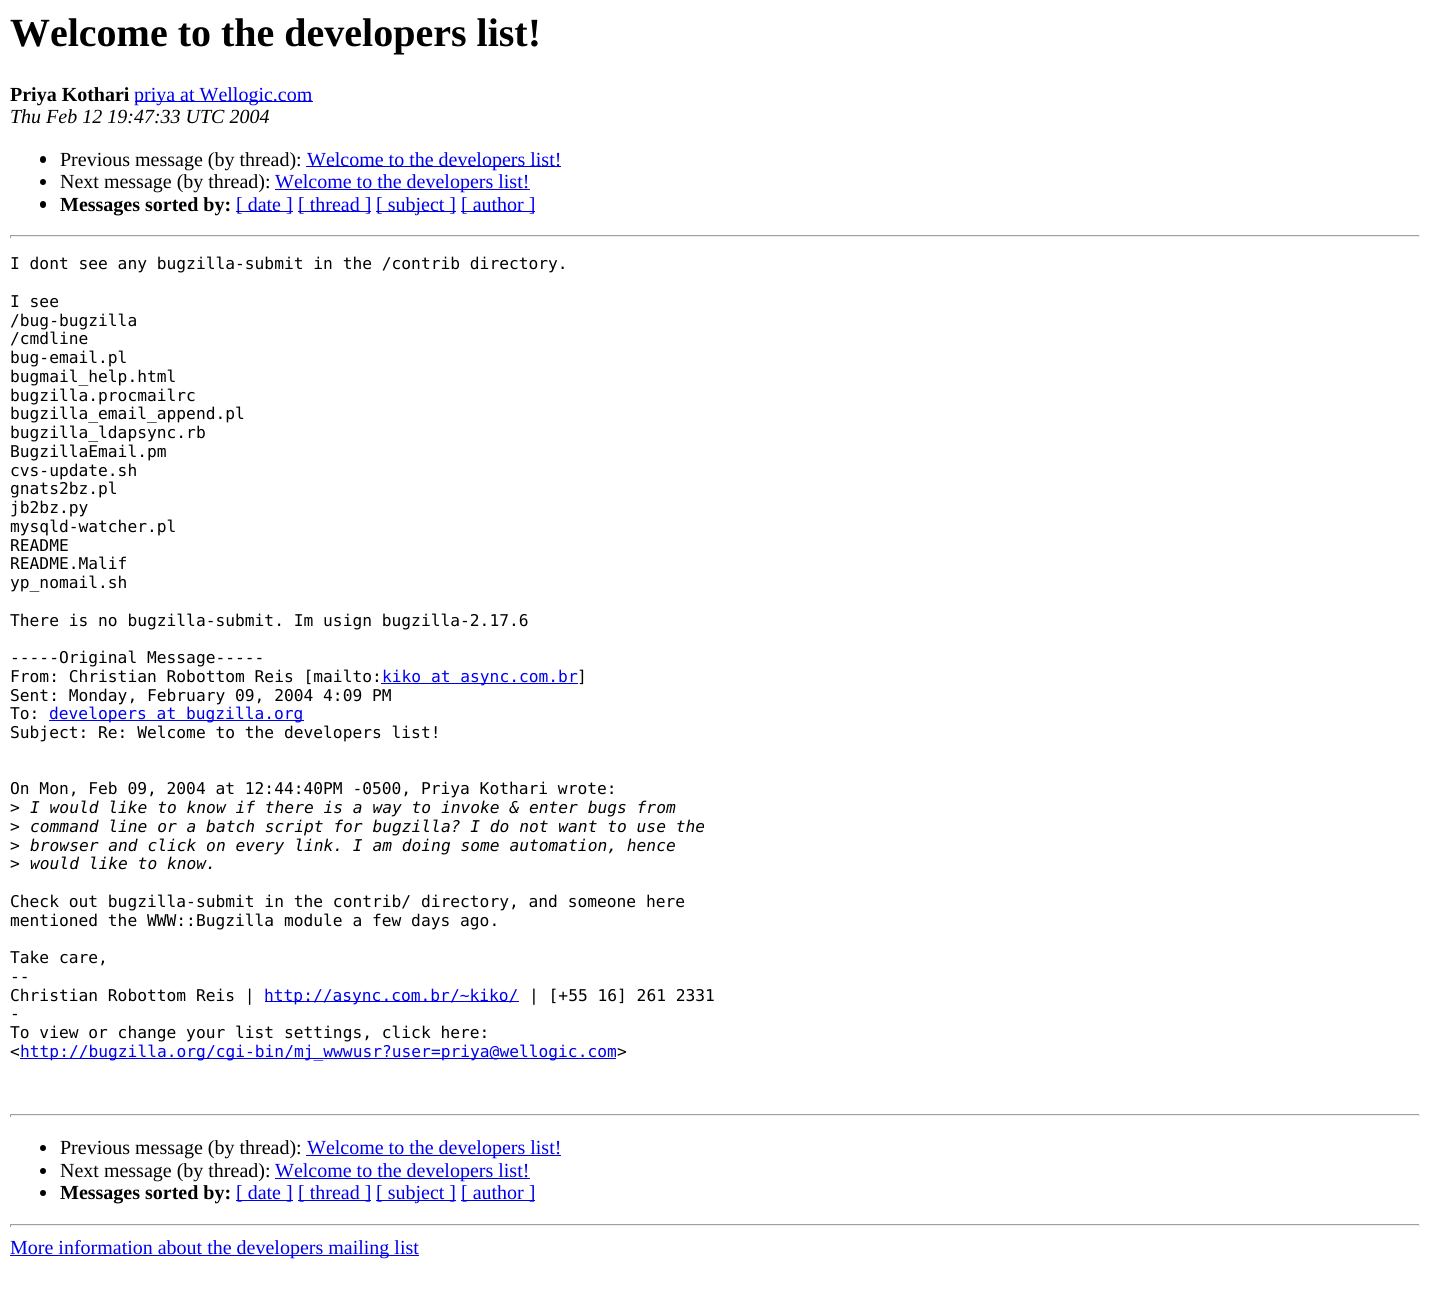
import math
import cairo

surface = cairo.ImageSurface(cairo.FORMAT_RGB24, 1429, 1293)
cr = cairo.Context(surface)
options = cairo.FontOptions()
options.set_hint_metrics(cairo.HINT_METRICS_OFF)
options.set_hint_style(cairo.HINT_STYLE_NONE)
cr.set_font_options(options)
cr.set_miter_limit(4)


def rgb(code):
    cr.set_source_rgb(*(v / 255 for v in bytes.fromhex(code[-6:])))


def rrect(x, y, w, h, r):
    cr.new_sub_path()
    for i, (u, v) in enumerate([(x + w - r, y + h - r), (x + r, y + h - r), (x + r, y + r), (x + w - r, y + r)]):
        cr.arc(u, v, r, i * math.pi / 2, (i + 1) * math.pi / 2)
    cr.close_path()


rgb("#ffffff")
cr.paint()
rgb("#0000ee")
cr.rectangle(135, 101, 178, 1)
cr.fill()
rgb("#000000")
rrect(40, 156, 6, 7, 3)
cr.fill()
rgb("#0000ee")
cr.rectangle(306, 166, 255, 1)
cr.fill()
rgb("#000000")
cr.arc(43, 182, 3, 0, 2 * math.pi)
cr.fill()
rgb("#0000ee")
cr.rectangle(275, 189, 255, 1)
cr.fill()
rgb("#000000")
rrect(40, 201, 6, 7, 3)
cr.fill()
for x, y, w, h, color in [
    (236, 211, 57, 1, "#0000ee"),
    (298, 211, 73, 1, "#0000ee"),
    (376, 211, 80, 1, "#0000ee"),
    (461, 211, 74, 1, "#0000ee"),
    (10, 235, 1410, 1, "#9f9f9f"),
    (1419, 235, 1, 3, "#eeeeee"),
    (10, 236, 1410, 1, "#eeeeee"),
    (10, 235, 1, 3, "#9f9f9f"),
    (381, 683, 197, 1, "#0000ee"),
    (49, 720, 255, 1, "#0000ee"),
    (265, 1001, 254, 1, "#0000ee"),
    (20, 1058, 596, 1, "#0000ee"),
    (10, 1114, 1410, 1, "#9f9f9f"),
    (1419, 1114, 1, 3, "#eeeeee"),
    (10, 1115, 1410, 1, "#eeeeee"),
    (10, 1114, 1, 3, "#9f9f9f"),
]:
    rgb(color)
    cr.rectangle(x, y, w, h)
    cr.fill()
rgb("#000000")
cr.arc(43, 1148, 3, 0, 2 * math.pi)
cr.fill()
rgb("#0000ee")
cr.rectangle(306, 1155, 255, 1)
cr.fill()
rgb("#000000")
cr.arc(43, 1171, 3, 0, 2 * math.pi)
cr.fill()
rgb("#0000ee")
cr.rectangle(275, 1178, 255, 1)
cr.fill()
rgb("#000000")
cr.arc(43, 1193, 3, 0, 2 * math.pi)
cr.fill()
for x, y, w, h, color in [
    (236, 1200, 57, 1, "#0000ee"),
    (298, 1200, 73, 1, "#0000ee"),
    (376, 1200, 80, 1, "#0000ee"),
    (461, 1200, 74, 1, "#0000ee"),
    (10, 1224, 1410, 1, "#9f9f9f"),
    (1419, 1224, 1, 3, "#eeeeee"),
    (10, 1225, 1410, 1, "#eeeeee"),
    (10, 1224, 1, 3, "#9f9f9f"),
    (10, 1255, 409, 1, "#0000ee"),
]:
    rgb(color)
    cr.rectangle(x, y, w, h)
    cr.fill()
cr.select_font_face("Liberation Serif", cairo.FONT_SLANT_NORMAL, cairo.FONT_WEIGHT_BOLD)
cr.set_font_size(40)
rgb("#000000")
cr.move_to(10, 46)
cr.show_text("Welcome to the developers list!")
cr.set_font_size(20)
cr.move_to(10, 101)
cr.show_text("Priya Kothari")
cr.select_font_face("Liberation Serif")
rgb("#0000ee")
cr.move_to(134, 101)
cr.show_text("priya at Wellogic.com")
cr.select_font_face("Liberation Serif", cairo.FONT_SLANT_ITALIC)
rgb("#000000")
cr.move_to(10, 123)
cr.show_text("Thu Feb 12 19:47:33 UTC 2004")
cr.select_font_face("Liberation Serif")
cr.move_to(60, 166)
cr.show_text("Previous message (by thread):")
rgb("#0000ee")
cr.move_to(307, 166)
cr.show_text("Welcome to the developers list!")
rgb("#000000")
cr.move_to(60, 188)
cr.show_text("Next message (by thread):")
rgb("#0000ee")
cr.move_to(275, 188)
cr.show_text("Welcome to the developers list!")
cr.select_font_face("Liberation Serif", cairo.FONT_SLANT_NORMAL, cairo.FONT_WEIGHT_BOLD)
rgb("#000000")
cr.move_to(60, 211)
cr.show_text("Messages sorted by:")
cr.select_font_face("Liberation Serif")
rgb("#0000ee")
for x, y, s in [
    (236, 211, "[ date ]"),
    (298, 211, "[ thread ]"),
    (376, 211, "[ subject ]"),
    (461, 211, "[ author ]"),
]:
    cr.move_to(x, y)
    cr.show_text(s)
cr.select_font_face("DejaVu Sans Mono")
cr.set_font_size(16.25)
rgb("#000000")
for x, y, s in [
    (10, 269, "I dont see any bugzilla-submit in the /contrib directory."),
    (10, 307, "I see"),
    (10, 326, "/bug-bugzilla"),
    (10, 344, "/cmdline"),
    (10, 363, "bug-email.pl"),
    (10, 382, "bugmail_help.html"),
    (10, 401, "bugzilla.procmailrc"),
    (10, 419, "bugzilla_email_append.pl"),
    (10, 438, "bugzilla_ldapsync.rb"),
    (10, 457, "BugzillaEmail.pm"),
    (10, 476, "cvs-update.sh"),
    (10, 494, "gnats2bz.pl"),
    (10, 513, "jb2bz.py"),
    (10, 532, "mysqld-watcher.pl"),
    (10, 551, "README"),
    (10, 569, "README.Malif"),
    (10, 588, "yp_nomail.sh"),
    (10, 626, "There is no bugzilla-submit. Im usign bugzilla-2.17.6"),
    (10, 663, "-----Original Message-----"),
    (10, 682, "From: Christian Robottom Reis [mailto:"),
]:
    cr.move_to(x, y)
    cr.show_text(s)
rgb("#0000ee")
cr.move_to(382, 682)
cr.show_text("kiko at async.com.br")
rgb("#000000")
for x, y, s in [
    (577, 682, "]"),
    (10, 701, "Sent: Monday, February 09, 2004 4:09 PM"),
    (10, 719, "To:"),
]:
    cr.move_to(x, y)
    cr.show_text(s)
rgb("#0000ee")
cr.move_to(49, 719)
cr.show_text("developers at bugzilla.org")
rgb("#000000")
for x, y, s in [
    (10, 738, "Subject: Re: Welcome to the developers list!"),
    (10, 794, "On Mon, Feb 09, 2004 at 12:44:40PM -0500, Priya Kothari wrote:"),
    (10, 813, ">"),
]:
    cr.move_to(x, y)
    cr.show_text(s)
cr.select_font_face("DejaVu Sans Mono", cairo.FONT_SLANT_ITALIC)
cr.move_to(30, 813)
cr.show_text("I would like to know if there is a way to invoke & enter bugs from")
cr.select_font_face("DejaVu Sans Mono")
cr.move_to(10, 832)
cr.show_text(">")
cr.select_font_face("DejaVu Sans Mono", cairo.FONT_SLANT_ITALIC)
cr.move_to(30, 832)
cr.show_text("command line or a batch script for bugzilla? I do not want to use the")
cr.select_font_face("DejaVu Sans Mono")
cr.move_to(10, 851)
cr.show_text(">")
cr.select_font_face("DejaVu Sans Mono", cairo.FONT_SLANT_ITALIC)
cr.move_to(30, 851)
cr.show_text("browser and click on every link. I am doing some automation, hence")
cr.select_font_face("DejaVu Sans Mono")
cr.move_to(10, 869)
cr.show_text(">")
cr.select_font_face("DejaVu Sans Mono", cairo.FONT_SLANT_ITALIC)
cr.move_to(30, 869)
cr.show_text("would like to know.")
cr.select_font_face("DejaVu Sans Mono")
for x, y, s in [
    (10, 907, "Check out bugzilla-submit in the contrib/ directory, and someone here"),
    (10, 926, "mentioned the WWW::Bugzilla module a few days ago."),
    (10, 963, "Take care,"),
    (10, 982, "--"),
    (10, 1001, "Christian Robottom Reis |"),
]:
    cr.move_to(x, y)
    cr.show_text(s)
rgb("#0000ee")
cr.move_to(264, 1001)
cr.show_text("http://async.com.br/~kiko/")
rgb("#000000")
for x, y, s in [
    (529, 1001, "| [+55 16] 261 2331"),
    (10, 1019, "-"),
    (10, 1038, "To view or change your list settings, click here:"),
    (10, 1057, "<"),
]:
    cr.move_to(x, y)
    cr.show_text(s)
rgb("#0000ee")
cr.move_to(20, 1057)
cr.show_text("http://bugzilla.org/cgi-bin/mj_wwwusr?user=priya@wellogic.com")
rgb("#000000")
cr.move_to(617, 1057)
cr.show_text(">")
cr.select_font_face("Liberation Serif")
cr.set_font_size(20)
cr.move_to(60, 1154)
cr.show_text("Previous message (by thread):")
rgb("#0000ee")
cr.move_to(307, 1154)
cr.show_text("Welcome to the developers list!")
rgb("#000000")
cr.move_to(60, 1177)
cr.show_text("Next message (by thread):")
rgb("#0000ee")
cr.move_to(275, 1177)
cr.show_text("Welcome to the developers list!")
cr.select_font_face("Liberation Serif", cairo.FONT_SLANT_NORMAL, cairo.FONT_WEIGHT_BOLD)
rgb("#000000")
cr.move_to(60, 1199)
cr.show_text("Messages sorted by:")
cr.select_font_face("Liberation Serif")
rgb("#0000ee")
for x, y, s in [
    (236, 1199, "[ date ]"),
    (298, 1199, "[ thread ]"),
    (376, 1199, "[ subject ]"),
    (461, 1199, "[ author ]"),
    (10, 1254, "More information about the developers mailing list"),
]:
    cr.move_to(x, y)
    cr.show_text(s)
surface.write_to_png("page.png")
